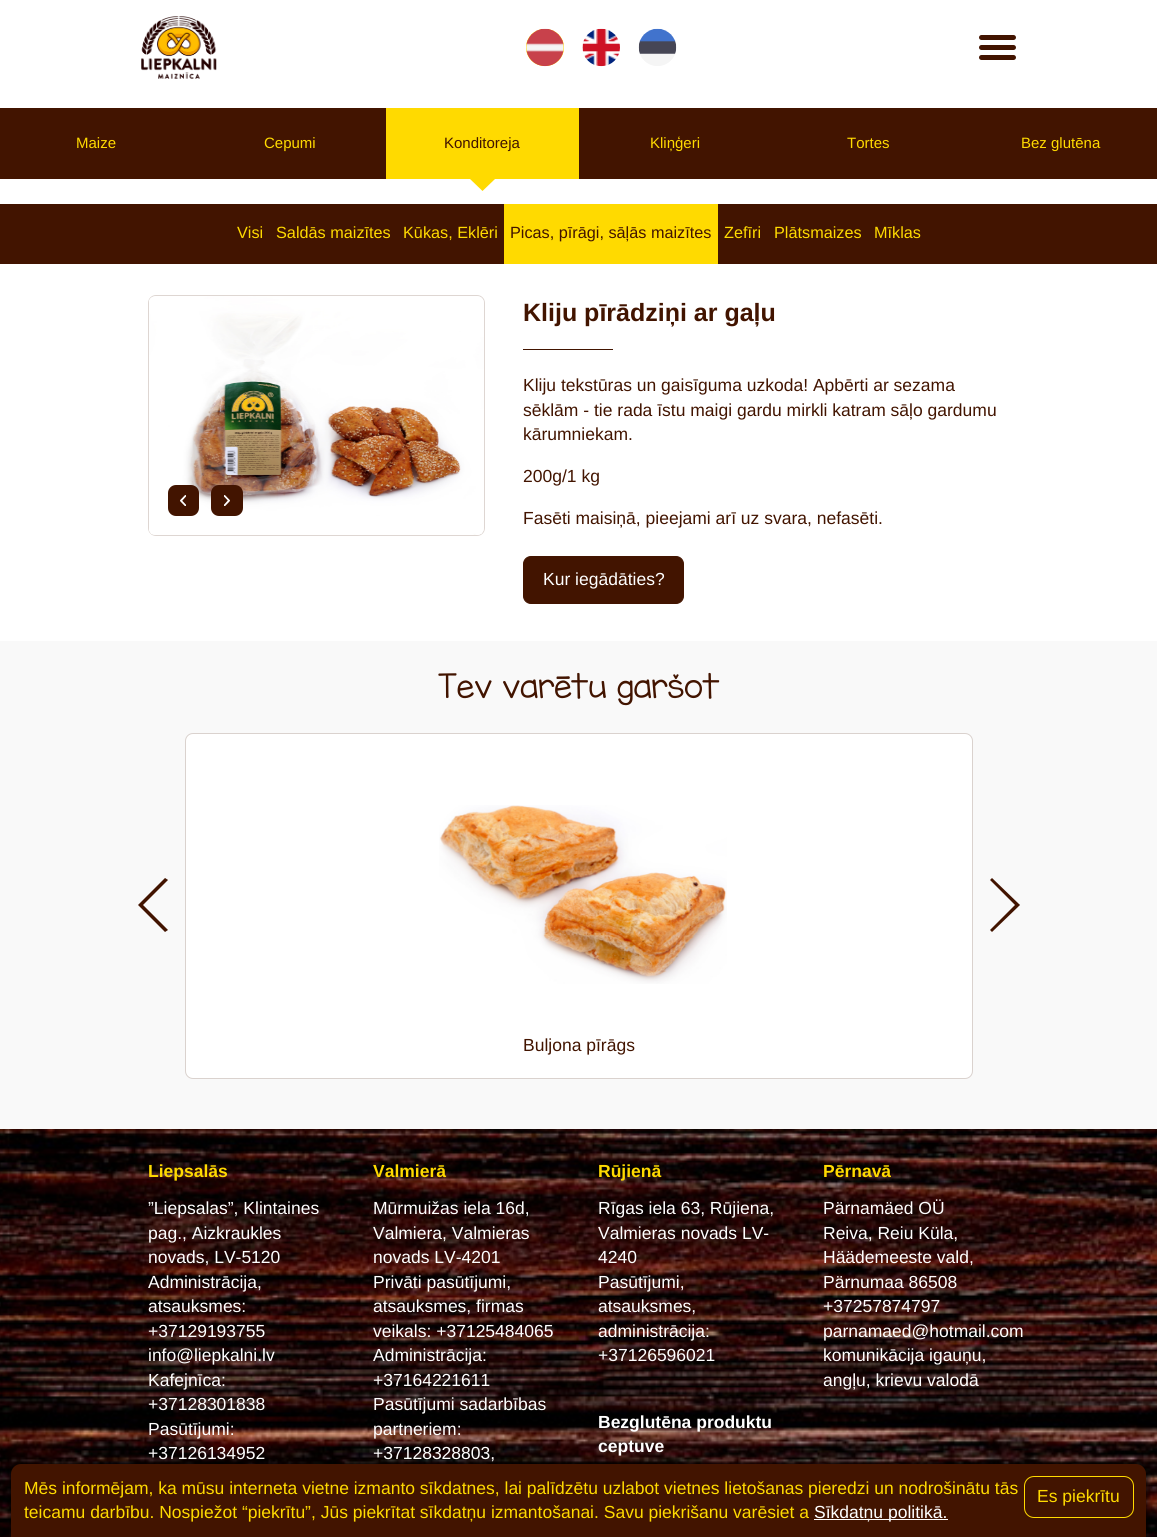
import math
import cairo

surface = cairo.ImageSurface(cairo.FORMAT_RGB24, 1157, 1537)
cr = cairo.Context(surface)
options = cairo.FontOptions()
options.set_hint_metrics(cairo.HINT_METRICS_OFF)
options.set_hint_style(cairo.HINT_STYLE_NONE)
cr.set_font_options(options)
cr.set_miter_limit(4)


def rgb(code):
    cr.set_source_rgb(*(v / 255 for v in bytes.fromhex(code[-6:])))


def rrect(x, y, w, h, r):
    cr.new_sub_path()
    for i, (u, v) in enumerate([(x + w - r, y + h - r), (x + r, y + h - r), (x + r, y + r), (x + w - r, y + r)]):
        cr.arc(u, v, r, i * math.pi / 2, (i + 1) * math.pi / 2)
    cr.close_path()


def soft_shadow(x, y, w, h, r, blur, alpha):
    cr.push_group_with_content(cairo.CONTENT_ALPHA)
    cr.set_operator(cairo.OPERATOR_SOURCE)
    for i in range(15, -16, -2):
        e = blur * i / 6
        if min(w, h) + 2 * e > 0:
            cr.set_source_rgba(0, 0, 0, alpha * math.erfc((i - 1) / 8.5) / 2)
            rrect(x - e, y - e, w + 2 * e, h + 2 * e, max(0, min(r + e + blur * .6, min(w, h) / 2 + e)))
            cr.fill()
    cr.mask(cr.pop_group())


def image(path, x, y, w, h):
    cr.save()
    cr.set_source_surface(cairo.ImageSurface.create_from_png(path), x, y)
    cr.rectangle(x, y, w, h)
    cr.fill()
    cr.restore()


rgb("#ffffff")
cr.paint()
image("img/1.png", 141, 16, 76, 63)
rgb("#ffda00")
rrect(526, 29, 38, 37, 18.5)
cr.fill()
image("img/2.png", 526, 28, 38, 39)
image("img/3.png", 582, 28, 38, 39)
image("img/4.png", 638, 28, 39, 38)
rgb("#421400")
rrect(979, 35, 37, 5, 2.5)
cr.fill()
rrect(979, 45, 37, 5, 2.5)
cr.fill()
rrect(979, 55, 37, 5, 2.5)
cr.fill()
cr.rectangle(0, 108, 1157, 71)
cr.fill()
rgb("#ffda00")
cr.rectangle(386, 108, 193, 71)
cr.fill()
cr.new_path()
cr.move_to(470, 179)
cr.line_to(495, 179)
cr.line_to(482.5, 191)
cr.close_path()
cr.fill()
rgb("#421400")
cr.rectangle(0, 204, 1157, 60)
cr.fill()
rgb("#ffda00")
cr.rectangle(504, 204, 214, 60)
cr.fill()
rrect(148.5, 295.5, 336, 240, 7.5)
rgb("#ded6d2")
cr.set_line_width(1)
cr.stroke()
image("img/5.png", 149, 296, 335, 239)
rgb("#421400")
rrect(168, 485, 31, 31, 8)
cr.fill()
image("img/6.png", 180, 495, 6, 11)
rrect(211, 485, 32, 31, 8)
cr.fill()
image("img/7.png", 224, 495, 6, 11)
cr.rectangle(523, 349, 90, 1)
cr.fill()
rrect(523.5, 556.5, 160, 47, 7.5)
cr.fill_preserve()
cr.stroke()
rgb("#f9f9f9")
cr.rectangle(0, 641, 1157, 488)
cr.fill()
rgb("#421400")
cr.new_path()
cr.move_to(138, 905)
cr.line_to(165, 878)
cr.line_to(168, 880)
cr.line_to(143, 905)
cr.line_to(168, 930)
cr.line_to(165, 932)
cr.close_path()
cr.fill()
cr.new_path()
cr.move_to(1020, 905)
cr.line_to(992, 932)
cr.line_to(990, 930)
cr.line_to(1015, 905)
cr.line_to(990, 880)
cr.line_to(992, 878)
cr.close_path()
cr.fill()
rgb("#ffffff")
rrect(185.5, 733.5, 787, 345, 7.5)
cr.fill_preserve()
rgb("#dad2ce")
cr.stroke()
image("img/8.png", 439, 805, 288, 179)
image("img/9.png", 0, 1129, 1157, 408)
rgb("#000000")
soft_shadow(11, 1464, 1135, 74, 10, 3, 1)
rgb("#421400")
cr.new_path()
cr.move_to(21, 1464)
cr.line_to(1136, 1464)
cr.curve_to(1141.5, 1464, 1146, 1468.5, 1146, 1474)
cr.line_to(1146, 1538)
cr.line_to(11, 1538)
cr.line_to(11, 1474)
cr.curve_to(11, 1468.5, 15.5, 1464, 21, 1464)
cr.close_path()
cr.fill()
rrect(1024.5, 1476.5, 109, 41, 9.5)
rgb("#ffda00")
cr.stroke()
rgb("#ffffff")
cr.rectangle(814, 1519, 134, 1)
cr.fill()
cr.select_font_face("Liberation Sans")
cr.set_font_size(15)
rgb("#ffda00")
cr.move_to(76, 148)
cr.show_text("Maize")
cr.move_to(264, 148)
cr.show_text("Cepumi")
rgb("#421400")
cr.move_to(444, 148)
cr.show_text("Konditoreja")
rgb("#ffda00")
for x, y, s in [
    (650, 148, "Kliņģeri"),
    (847, 148, "Tortes"),
    (1021, 148, "Bez glutēna"),
]:
    cr.move_to(x, y)
    cr.show_text(s)
cr.set_font_size(16.25)
for x, y, s in [
    (237, 238, "Visi"),
    (276, 238, "Saldās maizītes"),
    (403, 238, "Kūkas, Eklēri"),
]:
    cr.move_to(x, y)
    cr.show_text(s)
rgb("#421400")
cr.move_to(510, 238)
cr.show_text("Picas, pīrāgi, sāļās maizītes")
rgb("#ffda00")
for x, y, s in [
    (724, 238, "Zefīri"),
    (774, 238, "Plātsmaizes"),
    (874, 238, "Mīklas"),
]:
    cr.move_to(x, y)
    cr.show_text(s)
cr.select_font_face("Liberation Sans", cairo.FONT_SLANT_NORMAL, cairo.FONT_WEIGHT_BOLD)
cr.set_font_size(25)
rgb("#421400")
cr.move_to(523, 321)
cr.show_text("Kliju pīrādziņi ar gaļu")
cr.select_font_face("Liberation Sans")
cr.set_font_size(17.5)
for x, y, s in [
    (523, 391, "Kliju tekstūras un gaisīguma uzkoda! Apbērti ar sezama"),
    (523, 416, "sēklām - tie rada īstu maigi gardu mirkli katram sāļo gardumu"),
    (523, 440, "kārumniekam."),
    (523, 482, "200g/1 kg"),
    (523, 524, "Fasēti maisiņā, pieejami arī uz svara, nefasēti."),
]:
    cr.move_to(x, y)
    cr.show_text(s)
rgb("#ffffff")
cr.move_to(543, 585)
cr.show_text("Kur iegādāties?")
cr.select_font_face("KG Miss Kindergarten")
cr.set_font_size(30)
rgb("#421400")
cr.move_to(438, 698)
cr.show_text("Tev varētu garšot")
cr.select_font_face("Liberation Sans")
cr.set_font_size(17.5)
cr.move_to(523, 1051)
cr.show_text("Buljona pīrāgs")
cr.select_font_face("Liberation Sans", cairo.FONT_SLANT_NORMAL, cairo.FONT_WEIGHT_BOLD)
rgb("#ffda00")
cr.move_to(148, 1177)
cr.show_text("Liepsalās")
cr.select_font_face("Liberation Sans")
rgb("#ffffff")
for x, y, s in [
    (148, 1214, "”Liepsalas”, Klintaines"),
    (148, 1239, "pag., Aizkraukles"),
    (148, 1263, "novads, LV-5120"),
    (148, 1288, "Administrācija,"),
    (148, 1312, "atsauksmes:"),
    (148, 1337, "+37129193755"),
    (148, 1361, "info@liepkalni.lv"),
    (148, 1386, "Kafejnīca:"),
    (148, 1410, "+37128301838"),
    (148, 1435, "Pasūtījumi:"),
    (148, 1459, "+37126134952"),
]:
    cr.move_to(x, y)
    cr.show_text(s)
cr.select_font_face("Liberation Sans", cairo.FONT_SLANT_NORMAL, cairo.FONT_WEIGHT_BOLD)
rgb("#ffda00")
cr.move_to(373, 1177)
cr.show_text("Valmierā")
cr.select_font_face("Liberation Sans")
rgb("#ffffff")
for x, y, s in [
    (373, 1214, "Mūrmuižas iela 16d,"),
    (373, 1239, "Valmiera, Valmieras"),
    (373, 1263, "novads LV-4201"),
    (373, 1288, "Privāti pasūtījumi,"),
    (373, 1312, "atsauksmes, firmas"),
    (373, 1337, "veikals: +37125484065"),
    (373, 1361, "Administrācija:"),
    (373, 1386, "+37164221611"),
    (373, 1410, "Pasūtījumi sadarbības"),
    (373, 1435, "partneriem:"),
    (373, 1459, "+37128328803,"),
]:
    cr.move_to(x, y)
    cr.show_text(s)
cr.select_font_face("Liberation Sans", cairo.FONT_SLANT_NORMAL, cairo.FONT_WEIGHT_BOLD)
rgb("#ffda00")
cr.move_to(598, 1177)
cr.show_text("Rūjienā")
cr.select_font_face("Liberation Sans")
rgb("#ffffff")
for x, y, s in [
    (598, 1214, "Rīgas iela 63, Rūjiena,"),
    (598, 1239, "Valmieras novads LV-"),
    (598, 1263, "4240"),
    (598, 1288, "Pasūtījumi,"),
    (598, 1312, "atsauksmes,"),
    (598, 1337, "administrācija:"),
    (598, 1361, "+37126596021"),
]:
    cr.move_to(x, y)
    cr.show_text(s)
cr.select_font_face("Liberation Sans", cairo.FONT_SLANT_NORMAL, cairo.FONT_WEIGHT_BOLD)
cr.move_to(598, 1428)
cr.show_text("Bezglutēna produktu")
cr.move_to(598, 1452)
cr.show_text("ceptuve")
rgb("#ffda00")
cr.move_to(823, 1177)
cr.show_text("Pērnavā")
cr.select_font_face("Liberation Sans")
rgb("#ffffff")
for x, y, s in [
    (823, 1214, "Pärnamäed OÜ"),
    (823, 1239, "Reiva, Reiu Küla,"),
    (823, 1263, "Häädemeeste vald,"),
    (823, 1288, "Pärnumaa 86508"),
    (823, 1312, "+37257874797"),
    (823, 1337, "parnamaed@hotmail.com"),
    (823, 1361, "komunikācija igauņu,"),
    (823, 1386, "angļu, krievu valodā"),
]:
    cr.move_to(x, y)
    cr.show_text(s)
rgb("#ffda00")
for x, y, s in [
    (24, 1494, "Mēs informējam, ka mūsu interneta vietne izmanto sīkdatnes, lai palīdzētu uzlabot vietnes lietošanas pieredzi un nodrošinātu tās"),
    (1037, 1502, "Es piekrītu"),
    (24, 1518, "teicamu darbību. Nospiežot “piekrītu”, Jūs piekrītat sīkdatņu izmantošanai. Savu piekrišanu varēsiet a"),
]:
    cr.move_to(x, y)
    cr.show_text(s)
rgb("#ffffff")
cr.move_to(814, 1518)
cr.show_text("Sīkdatņu politikā.")
surface.write_to_png("page.png")
